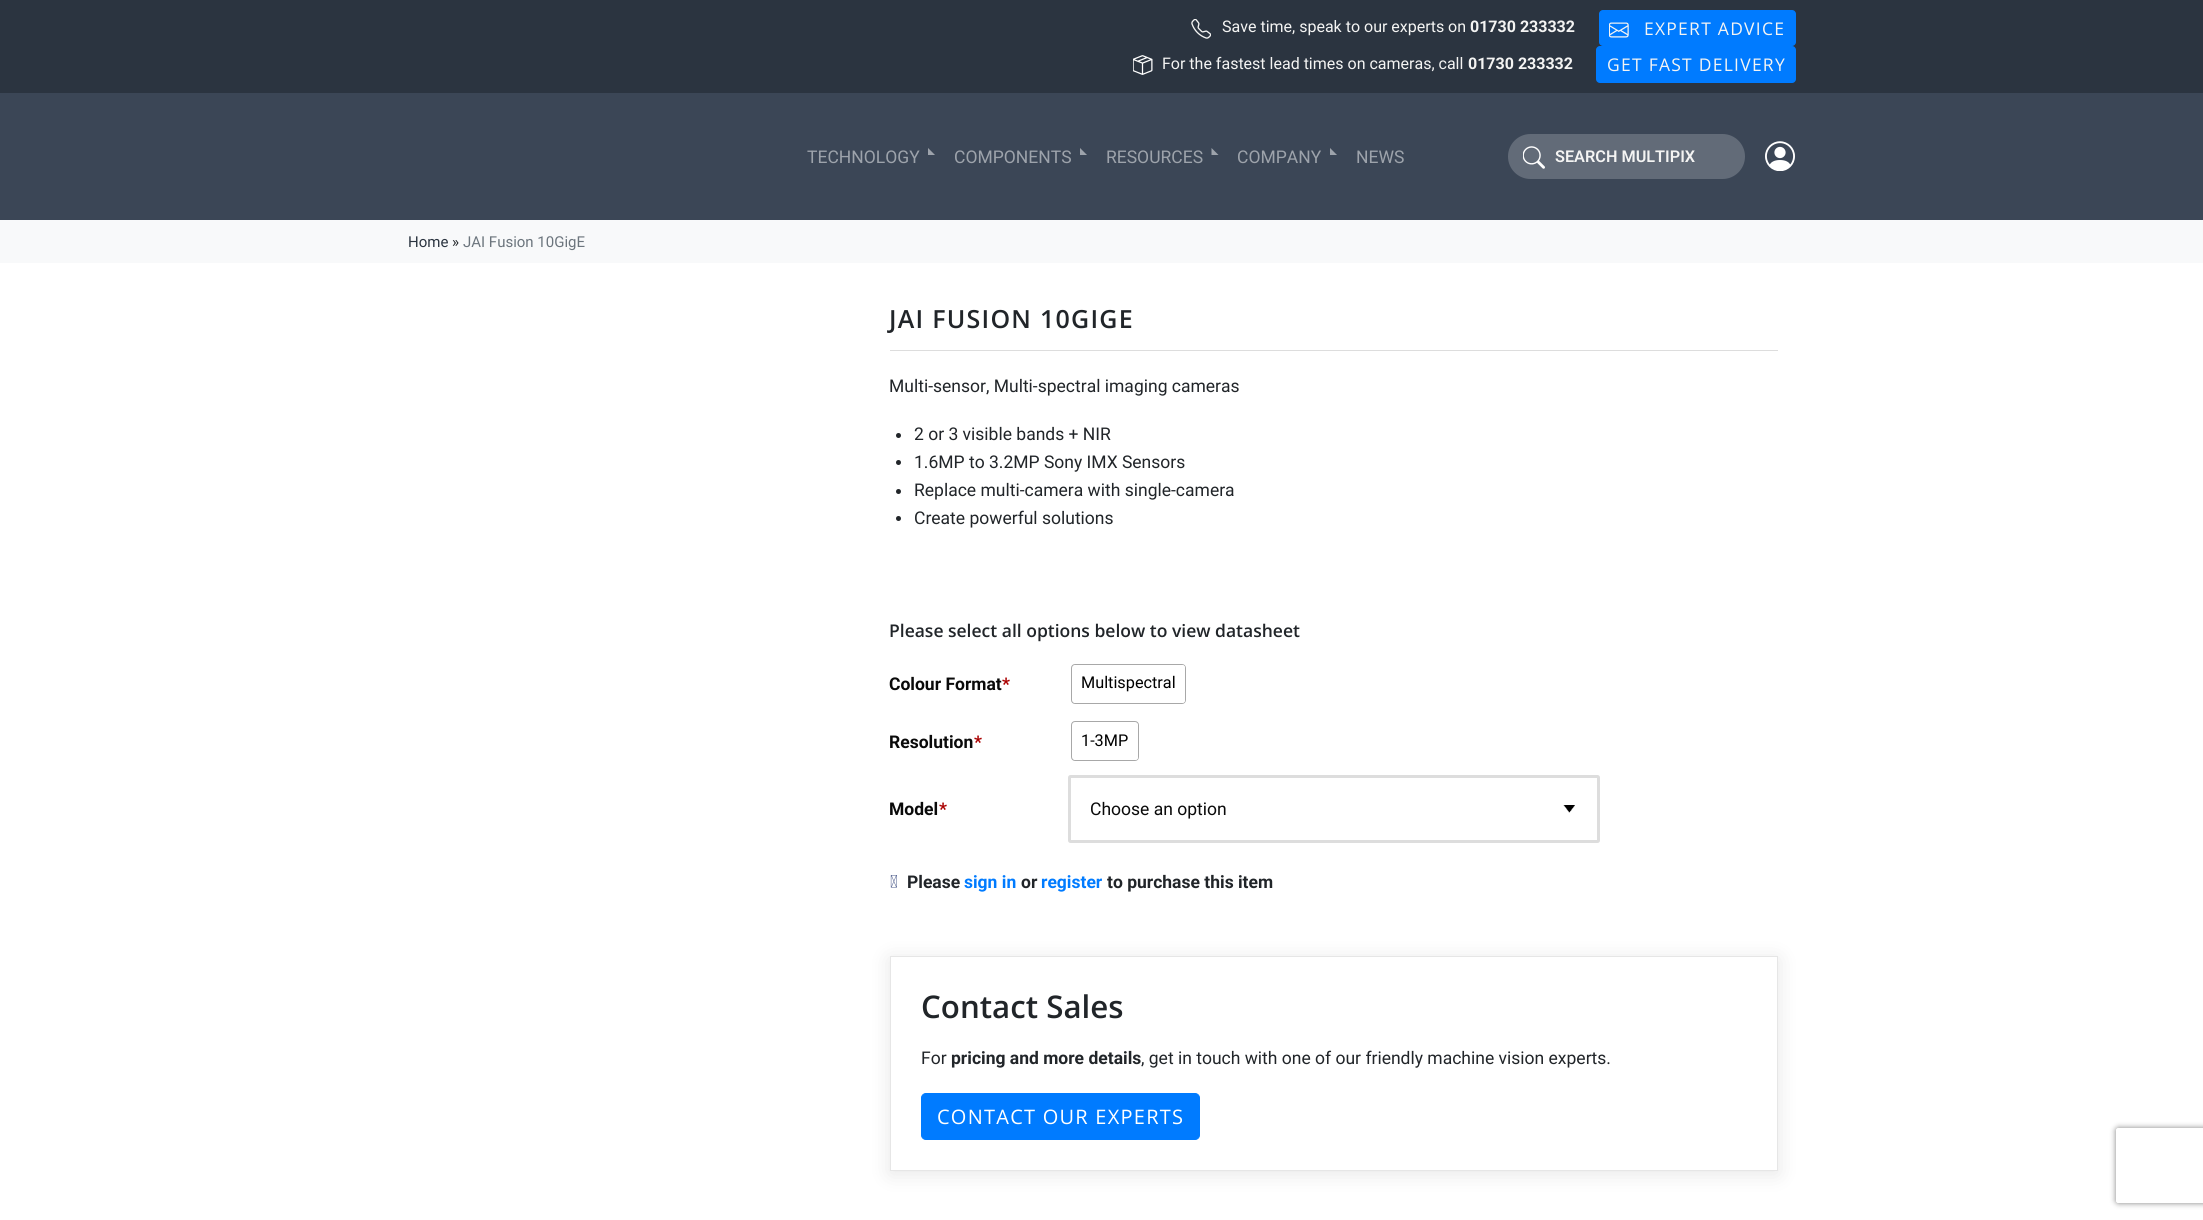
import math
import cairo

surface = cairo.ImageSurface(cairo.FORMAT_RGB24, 2203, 1220)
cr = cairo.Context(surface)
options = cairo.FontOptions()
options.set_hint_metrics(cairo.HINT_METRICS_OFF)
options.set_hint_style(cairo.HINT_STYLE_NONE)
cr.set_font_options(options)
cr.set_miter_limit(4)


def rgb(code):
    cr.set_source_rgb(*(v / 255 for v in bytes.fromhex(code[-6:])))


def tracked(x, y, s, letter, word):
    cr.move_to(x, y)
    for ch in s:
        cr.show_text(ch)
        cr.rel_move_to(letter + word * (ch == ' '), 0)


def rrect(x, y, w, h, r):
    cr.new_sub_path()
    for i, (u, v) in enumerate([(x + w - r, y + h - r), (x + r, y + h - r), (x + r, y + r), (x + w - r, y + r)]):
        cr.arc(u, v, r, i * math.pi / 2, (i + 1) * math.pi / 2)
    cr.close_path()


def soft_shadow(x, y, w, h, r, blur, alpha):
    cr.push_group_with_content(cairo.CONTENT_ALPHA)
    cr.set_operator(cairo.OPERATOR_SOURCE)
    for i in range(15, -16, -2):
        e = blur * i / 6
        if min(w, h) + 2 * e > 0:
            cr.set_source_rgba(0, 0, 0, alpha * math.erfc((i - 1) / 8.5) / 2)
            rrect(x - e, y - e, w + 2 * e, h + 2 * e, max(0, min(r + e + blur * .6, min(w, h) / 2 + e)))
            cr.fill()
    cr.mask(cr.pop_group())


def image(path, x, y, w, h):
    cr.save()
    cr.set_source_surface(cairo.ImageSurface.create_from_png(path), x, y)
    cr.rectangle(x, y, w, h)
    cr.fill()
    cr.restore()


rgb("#ffffff")
cr.paint()
rgb("#2b3440")
cr.rectangle(0, 0, 2203, 93)
cr.fill()
image("img/1.png", 1191, 19, 20, 20)
rgb("#007bff")
rrect(1599, 10, 197, 36, 4)
cr.fill()
image("img/2.png", 1609, 22, 20, 16)
image("img/3.png", 1133, 55, 20, 20)
rrect(1596, 46, 200, 37, 4)
cr.fill()
rgb("#3b4656")
cr.rectangle(0, 93, 2203, 127)
cr.fill()
rgb("#9da3ab")
cr.new_path()
cr.move_to(928, 148)
cr.line_to(935, 155)
cr.line_to(928, 155)
cr.close_path()
cr.fill()
cr.new_path()
cr.move_to(1080, 148)
cr.line_to(1087, 155)
cr.line_to(1080, 155)
cr.close_path()
cr.fill()
cr.new_path()
cr.move_to(1211.5, 148)
cr.line_to(1218.5, 155)
cr.line_to(1211.5, 155)
cr.close_path()
cr.fill()
cr.new_path()
cr.move_to(1330, 148)
cr.line_to(1337, 155)
cr.line_to(1330, 155)
cr.close_path()
cr.fill()
rgb("#626b78")
rrect(1508, 134, 237, 45, 22.5)
cr.fill()
image("img/4.png", 1523, 146, 22, 23)
image("img/5.png", 1765, 141, 30, 30)
rgb("#f8f9fa")
cr.rectangle(0, 220, 2203, 43)
cr.fill()
rgb("#dddddd")
cr.rectangle(890, 350, 888, 1)
cr.fill()
rgb("#212529")
cr.arc(898.5, 435.5, 2.5, 0, 2 * math.pi)
cr.fill()
cr.arc(898.5, 462.5, 2.5, 0, 2 * math.pi)
cr.fill()
cr.arc(898.5, 491.5, 2.5, 0, 2 * math.pi)
cr.fill()
cr.arc(898.5, 518.5, 2.5, 0, 2 * math.pi)
cr.fill()
rrect(1071.5, 664.5, 114, 39, 3.5)
rgb("#a8a8a8")
cr.set_line_width(1)
cr.stroke()
rgb("#ffffff")
rrect(1073, 665, 112, 38, 2.5)
cr.fill()
rrect(1071.5, 721.5, 67, 39, 3.5)
rgb("#a8a8a8")
cr.stroke()
rgb("#ffffff")
rrect(1073, 723, 65, 37, 2.5)
cr.fill()
image("img/6.png", 1563, 805, 12, 8)
rrect(1069.5, 776.5, 529, 65, 1)
rgb("#dddddd")
cr.set_line_width(3)
cr.stroke()
image("img/7.png", 890, 875, 7, 13)
cr.save()
cr.set_fill_rule(cairo.FILL_RULE_EVEN_ODD)
cr.new_path()
cr.move_to(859, 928)
cr.line_to(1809, 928)
cr.line_to(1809, 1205)
cr.line_to(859, 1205)
cr.close_path()
cr.move_to(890, 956)
cr.line_to(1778, 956)
cr.line_to(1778, 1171)
cr.line_to(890, 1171)
cr.close_path()
cr.clip()
rgb("#000000")
soft_shadow(890, 959, 888, 215, 0, 10, 0.1)
cr.restore()
cr.rectangle(890.5, 956.5, 887, 214)
cr.set_source_rgba(0, 0, 0, 0.1)
cr.set_line_width(1)
cr.stroke()
rgb("#007bff")
rrect(921.5, 1093.5, 278, 46, 4.5)
cr.fill_preserve()
cr.stroke()
cr.save()
cr.set_fill_rule(cairo.FILL_RULE_EVEN_ODD)
cr.new_path()
cr.move_to(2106, 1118)
cr.line_to(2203, 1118)
cr.line_to(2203, 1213)
cr.line_to(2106, 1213)
cr.close_path()
cr.move_to(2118.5, 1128)
cr.line_to(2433.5, 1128)
cr.curve_to(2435, 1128, 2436, 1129, 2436, 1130.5)
cr.line_to(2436, 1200.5)
cr.curve_to(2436, 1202, 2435, 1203, 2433.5, 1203)
cr.line_to(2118.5, 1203)
cr.curve_to(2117, 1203, 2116, 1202, 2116, 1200.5)
cr.line_to(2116, 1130.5)
cr.curve_to(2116, 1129, 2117, 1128, 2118.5, 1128)
cr.close_path()
cr.clip()
rgb("#808080")
soft_shadow(2116, 1128, 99, 75, 2.5, 3, 1)
cr.restore()
cr.select_font_face("Roboto")
cr.set_font_size(16)
rgb("#f4f4f3")
cr.move_to(1222, 32)
cr.show_text("Save time, speak to our experts on")
cr.select_font_face("Roboto", cairo.FONT_SLANT_NORMAL, cairo.FONT_WEIGHT_BOLD)
cr.move_to(1470, 32)
cr.show_text("01730 233332")
cr.select_font_face("Open Sans")
cr.set_font_size(17.5)
tracked(1644, 35, "EXPERT ADVICE", 1.25, 0)
cr.select_font_face("Roboto")
cr.set_font_size(16)
cr.move_to(1162, 69)
cr.show_text("For the fastest lead times on cameras, call")
cr.select_font_face("Roboto", cairo.FONT_SLANT_NORMAL, cairo.FONT_WEIGHT_BOLD)
cr.move_to(1468, 69)
cr.show_text("01730 233332")
cr.select_font_face("Open Sans")
cr.set_font_size(17.5)
tracked(1607, 71, "GET FAST DELIVERY", 1.25, 0)
cr.select_font_face("Roboto")
rgb("#9da3ab")
for x, y, s in [
    (807, 163, "TECHNOLOGY"),
    (954, 163, "COMPONENTS"),
    (1106, 163, "RESOURCES"),
    (1237, 163, "COMPANY"),
    (1356, 163, "NEWS"),
]:
    cr.move_to(x, y)
    cr.show_text(s)
cr.select_font_face("Roboto SemiBold")
cr.set_font_size(16.25)
rgb("#f4f4f3")
cr.move_to(1555, 162)
cr.show_text("SEARCH MULTIPIX")
cr.select_font_face("Roboto")
cr.set_font_size(15)
rgb("#2b3440")
cr.move_to(408, 247)
cr.show_text("Home")
rgb("#212529")
cr.move_to(452, 247)
cr.show_text("»")
rgb("#6c757d")
cr.move_to(463, 247)
cr.show_text("JAI Fusion 10GigE")
cr.select_font_face("Open Sans SemiBold")
cr.set_font_size(25)
rgb("#212529")
tracked(889, 328, "JAI FUSION 10GIGE", 1.25, 0)
cr.select_font_face("Roboto")
cr.set_font_size(17.5)
for x, y, s in [
    (889, 392, "Multi-sensor, Multi-spectral imaging cameras"),
    (914, 440, "2 or 3 visible bands + NIR"),
    (914, 468, "1.6MP to 3.2MP Sony IMX Sensors"),
    (914, 496, "Replace multi-camera with single-camera"),
    (914, 524, "Create powerful solutions"),
]:
    cr.move_to(x, y)
    cr.show_text(s)
cr.select_font_face("Open Sans SemiBold")
cr.move_to(889, 637)
cr.show_text("Please select all options below to view datasheet")
cr.select_font_face("Roboto", cairo.FONT_SLANT_NORMAL, cairo.FONT_WEIGHT_BOLD)
rgb("#0a0a0a")
cr.move_to(889, 690)
cr.show_text("Colour Format")
rgb("#aa0000")
cr.move_to(1002, 690)
cr.show_text("*")
cr.select_font_face("Roboto")
cr.set_font_size(16.25)
rgb("#000000")
cr.move_to(1081, 688)
cr.show_text("Multispectral")
cr.select_font_face("Roboto", cairo.FONT_SLANT_NORMAL, cairo.FONT_WEIGHT_BOLD)
cr.set_font_size(17.5)
rgb("#0a0a0a")
cr.move_to(889, 748)
cr.show_text("Resolution")
rgb("#aa0000")
cr.move_to(974, 748)
cr.show_text("*")
cr.select_font_face("Roboto")
cr.set_font_size(16.25)
rgb("#000000")
cr.move_to(1081, 746)
cr.show_text("1-3MP")
cr.select_font_face("Roboto", cairo.FONT_SLANT_NORMAL, cairo.FONT_WEIGHT_BOLD)
cr.set_font_size(17.5)
rgb("#0a0a0a")
cr.move_to(889, 815)
cr.show_text("Model")
rgb("#aa0000")
cr.move_to(939, 815)
cr.show_text("*")
cr.select_font_face("Roboto")
rgb("#0a0a0a")
cr.move_to(1090, 815)
cr.show_text("Choose an option")
cr.select_font_face("Roboto", cairo.FONT_SLANT_NORMAL, cairo.FONT_WEIGHT_BOLD)
rgb("#212529")
cr.move_to(907, 888)
cr.show_text("Please")
rgb("#007bff")
cr.move_to(964, 888)
cr.show_text("sign in")
rgb("#212529")
cr.move_to(1021, 888)
cr.show_text("or")
rgb("#007bff")
cr.move_to(1041, 888)
cr.show_text("register")
rgb("#212529")
cr.move_to(1107, 888)
cr.show_text("to purchase this item")
cr.select_font_face("Open Sans SemiBold")
cr.set_font_size(31.25)
cr.move_to(921, 1018)
cr.show_text("Contact Sales")
cr.select_font_face("Roboto")
cr.set_font_size(17.5)
cr.move_to(921, 1064)
cr.show_text("For")
cr.select_font_face("Roboto", cairo.FONT_SLANT_NORMAL, cairo.FONT_WEIGHT_BOLD)
cr.move_to(951, 1064)
cr.show_text("pricing and more details")
cr.select_font_face("Roboto")
cr.move_to(1141, 1064)
cr.show_text(", get in touch with one of our friendly machine vision experts.")
cr.select_font_face("Open Sans")
cr.set_font_size(20)
rgb("#ffffff")
tracked(937, 1124, "CONTACT OUR EXPERTS", 1.25, 0)
surface.write_to_png("page.png")
